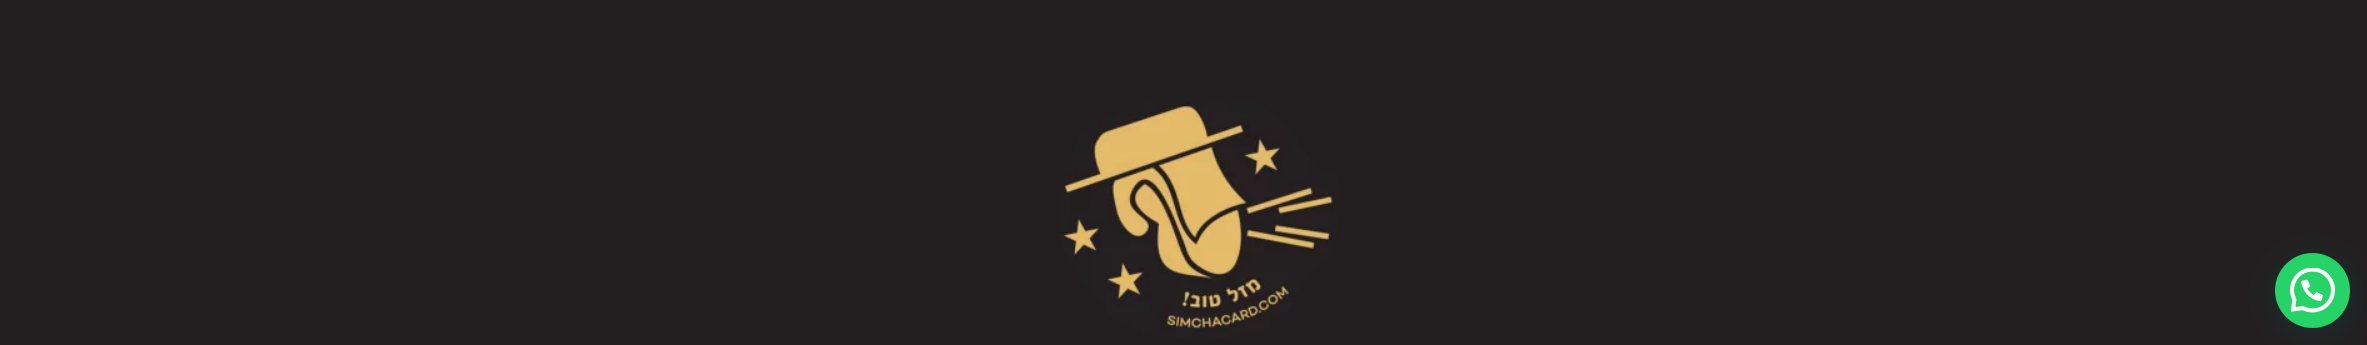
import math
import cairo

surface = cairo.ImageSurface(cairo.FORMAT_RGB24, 2367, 345)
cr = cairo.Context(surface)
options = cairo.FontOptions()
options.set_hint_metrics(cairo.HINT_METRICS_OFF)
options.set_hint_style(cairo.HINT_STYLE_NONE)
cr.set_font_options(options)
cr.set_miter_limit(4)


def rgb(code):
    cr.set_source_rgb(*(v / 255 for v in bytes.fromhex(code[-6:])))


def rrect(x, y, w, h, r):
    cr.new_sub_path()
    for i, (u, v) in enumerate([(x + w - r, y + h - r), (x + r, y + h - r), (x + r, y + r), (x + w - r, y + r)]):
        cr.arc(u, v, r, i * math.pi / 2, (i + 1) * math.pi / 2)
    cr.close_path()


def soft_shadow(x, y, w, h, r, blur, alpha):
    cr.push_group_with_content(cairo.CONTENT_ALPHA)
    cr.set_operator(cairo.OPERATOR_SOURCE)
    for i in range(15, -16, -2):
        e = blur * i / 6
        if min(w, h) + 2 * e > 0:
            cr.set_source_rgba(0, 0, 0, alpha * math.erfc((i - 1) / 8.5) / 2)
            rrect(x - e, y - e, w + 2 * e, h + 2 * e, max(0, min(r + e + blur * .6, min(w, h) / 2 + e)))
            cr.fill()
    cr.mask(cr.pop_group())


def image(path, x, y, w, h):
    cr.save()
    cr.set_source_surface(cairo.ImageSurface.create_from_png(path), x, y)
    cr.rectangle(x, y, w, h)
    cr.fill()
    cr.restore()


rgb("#231f20")
cr.paint()
image("img/1.png", 1060, 102, 280, 235)
rgb("#075e54")
soft_shadow(2276, 260, 75, 75, 37.5, 15, 0.24)
rgb("#25d366")
cr.arc(2312.5, 290.5, 37.5, 0, 2 * math.pi)
cr.fill()
image("img/2.png", 2290, 268, 45, 45)
surface.write_to_png("page.png")
